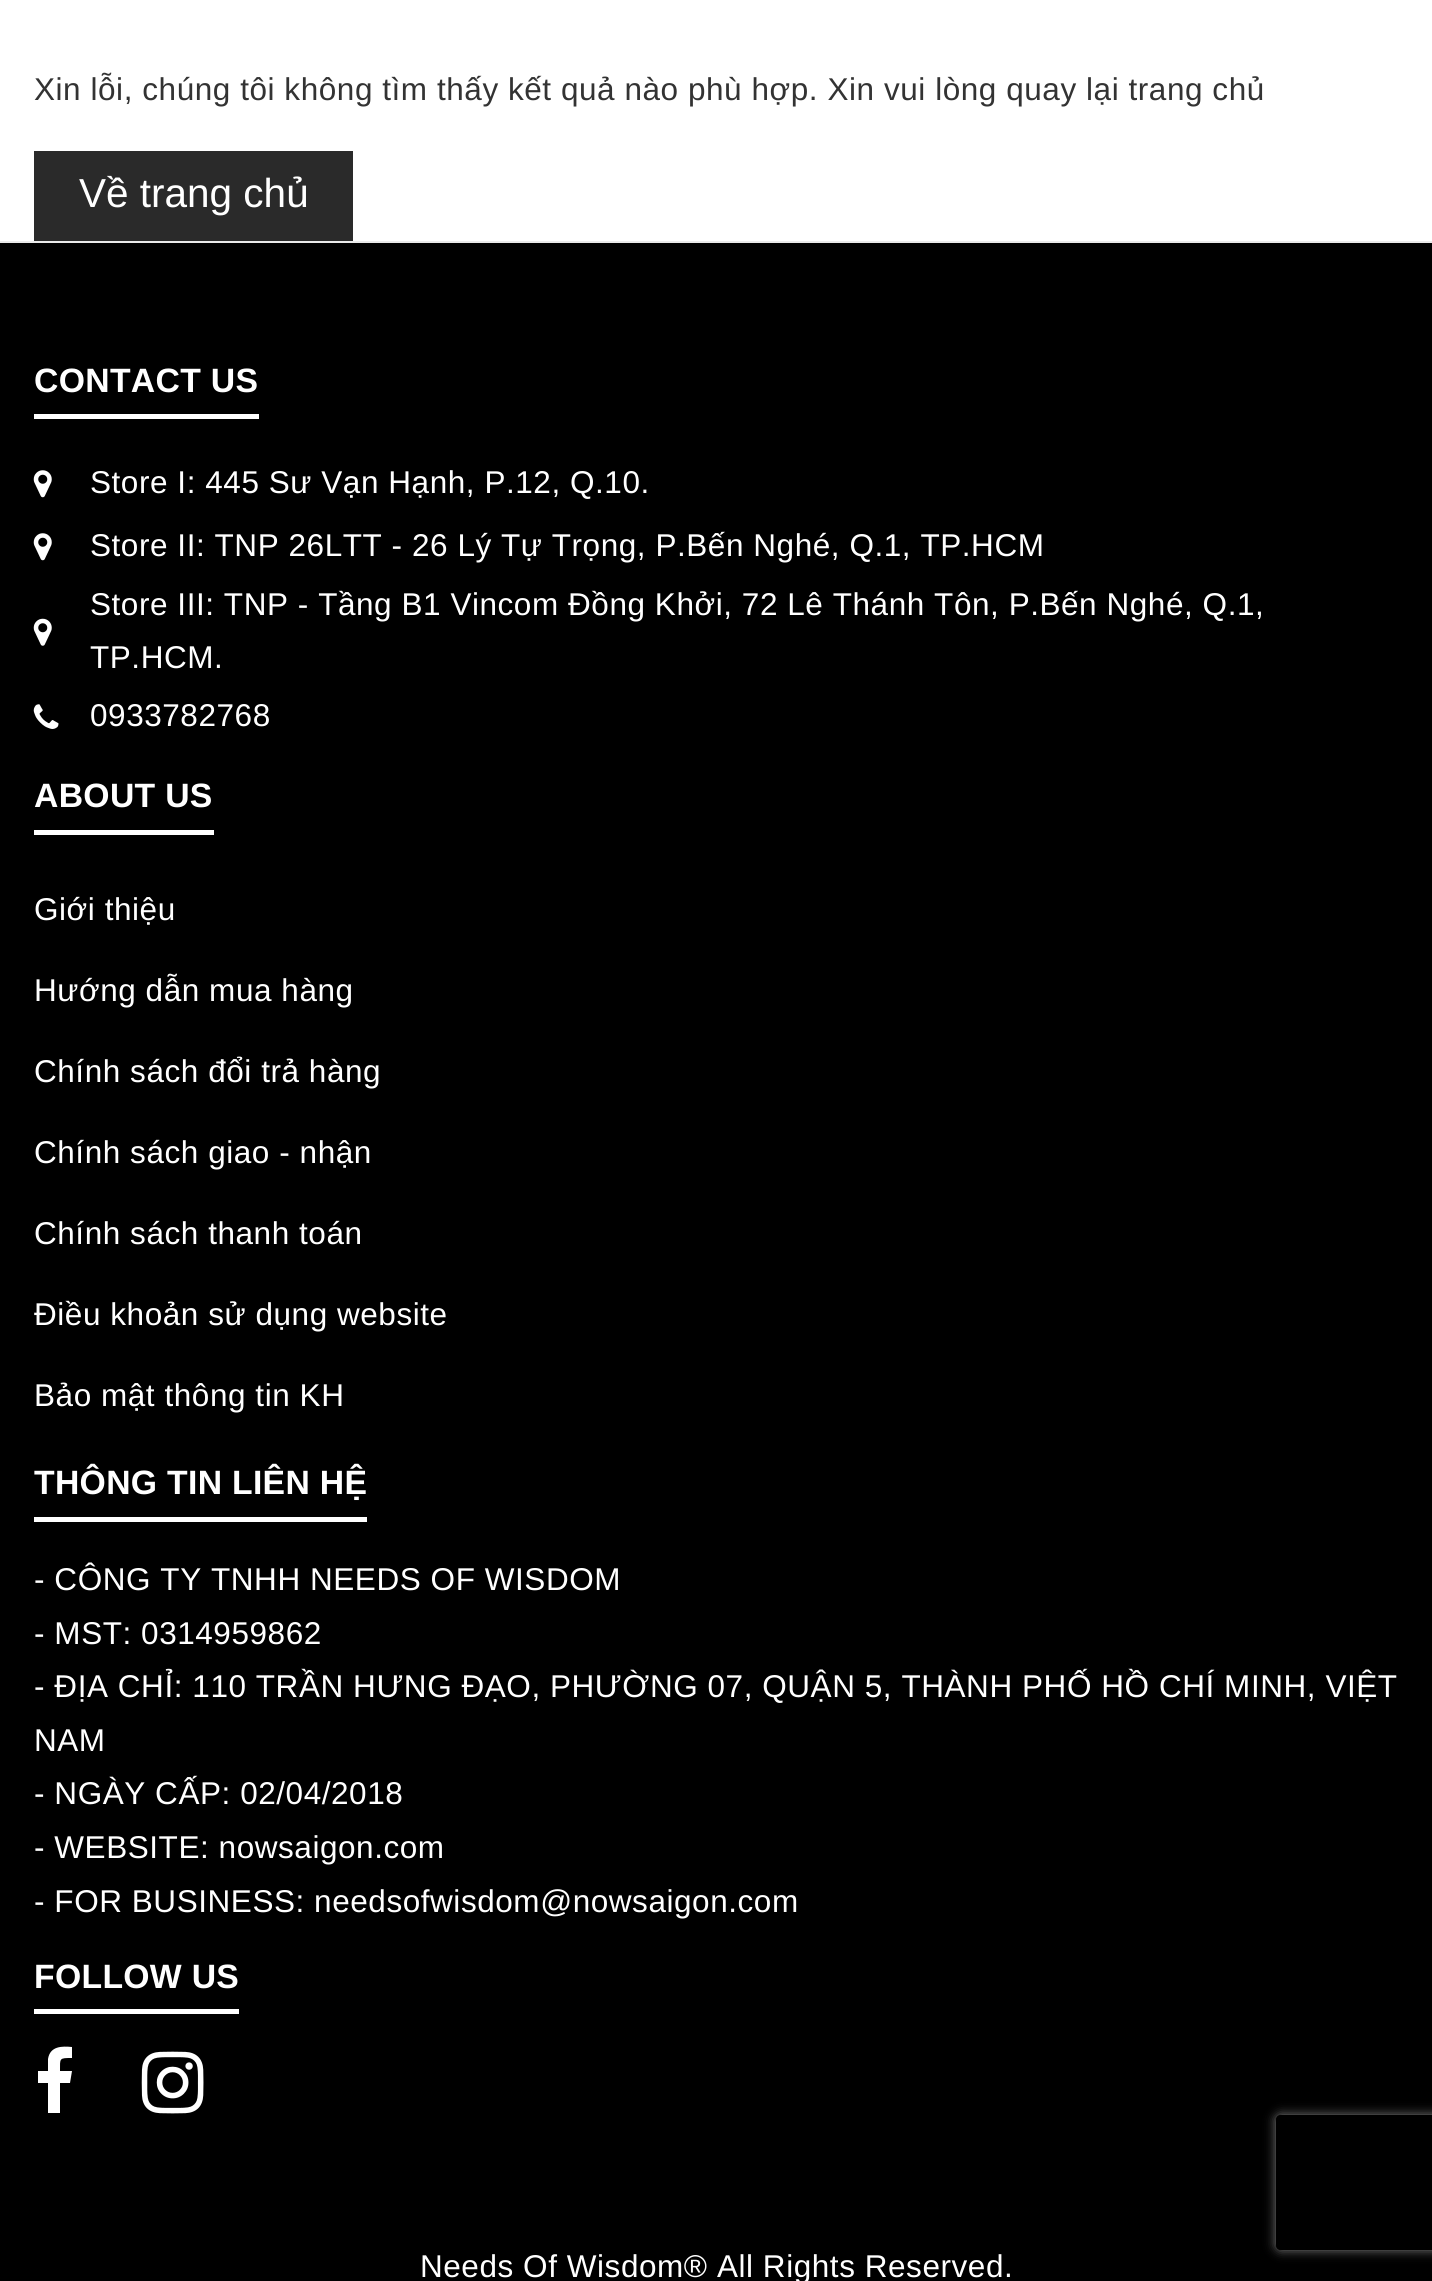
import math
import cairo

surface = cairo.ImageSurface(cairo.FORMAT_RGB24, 1432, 2281)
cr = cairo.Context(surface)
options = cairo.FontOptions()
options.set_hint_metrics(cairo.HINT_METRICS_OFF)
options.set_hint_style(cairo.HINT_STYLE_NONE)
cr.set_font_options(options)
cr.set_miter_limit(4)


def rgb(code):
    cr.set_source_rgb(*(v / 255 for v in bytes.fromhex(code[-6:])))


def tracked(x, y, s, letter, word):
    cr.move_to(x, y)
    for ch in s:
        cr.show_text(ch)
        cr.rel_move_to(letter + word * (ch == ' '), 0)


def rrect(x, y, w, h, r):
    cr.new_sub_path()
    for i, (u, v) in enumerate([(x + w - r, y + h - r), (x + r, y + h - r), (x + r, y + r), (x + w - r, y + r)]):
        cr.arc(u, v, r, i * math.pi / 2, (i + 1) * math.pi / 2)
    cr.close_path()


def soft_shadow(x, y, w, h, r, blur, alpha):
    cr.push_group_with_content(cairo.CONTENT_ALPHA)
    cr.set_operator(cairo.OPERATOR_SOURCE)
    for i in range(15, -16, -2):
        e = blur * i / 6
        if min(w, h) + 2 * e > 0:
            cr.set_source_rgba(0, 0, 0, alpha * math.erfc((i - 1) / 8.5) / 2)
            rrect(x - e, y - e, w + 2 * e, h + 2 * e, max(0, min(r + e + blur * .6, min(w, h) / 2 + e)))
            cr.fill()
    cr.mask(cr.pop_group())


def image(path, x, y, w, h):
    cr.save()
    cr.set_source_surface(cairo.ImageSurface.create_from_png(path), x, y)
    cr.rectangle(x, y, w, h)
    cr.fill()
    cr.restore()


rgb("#ffffff")
cr.paint()
for x, y, w, h, color in [
    (34, 151, 319, 90, "#2a2a2a"),
    (0, 241, 1432, 2, "#ebebeb"),
    (0, 243, 1432, 2038, "#000000"),
    (34, 414, 225, 5, "#ffffff"),
]:
    rgb(color)
    cr.rectangle(x, y, w, h)
    cr.fill()
image("img/1.png", 33, 470, 19, 28)
image("img/1.png", 33, 533, 19, 28)
image("img/2.png", 33, 618, 19, 28)
image("img/3.png", 33, 704, 26, 25)
for x, y, w, h, color in [
    (34, 830, 180, 5, "#ffffff"),
    (34, 1517, 333, 5, "#ffffff"),
    (34, 2009, 205, 5, "#ffffff"),
]:
    rgb(color)
    cr.rectangle(x, y, w, h)
    cr.fill()
cr.new_path()
cr.move_to(72, 2047)
cr.line_to(72, 2058)
cr.curve_to(59, 2058, 60, 2058, 60, 2071)
cr.line_to(72, 2071)
cr.line_to(70, 2083)
cr.line_to(60, 2083)
cr.line_to(60, 2113)
cr.line_to(48, 2113)
cr.line_to(48, 2083)
cr.line_to(38, 2083)
cr.line_to(38, 2071)
cr.line_to(48, 2071)
cr.line_to(48, 2059)
cr.curve_to(50, 2046, 62, 2046, 72, 2047)
cr.close_path()
cr.fill()
image("img/4.png", 141, 2051, 63, 63)
cr.save()
cr.set_fill_rule(cairo.FILL_RULE_EVEN_ODD)
cr.new_path()
cr.move_to(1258, 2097)
cr.line_to(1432, 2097)
cr.line_to(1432, 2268)
cr.line_to(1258, 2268)
cr.close_path()
cr.move_to(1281, 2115)
cr.line_to(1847, 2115)
cr.curve_to(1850, 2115, 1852, 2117, 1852, 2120)
cr.line_to(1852, 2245)
cr.curve_to(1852, 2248, 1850, 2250, 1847, 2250)
cr.line_to(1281, 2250)
cr.curve_to(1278, 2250, 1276, 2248, 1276, 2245)
cr.line_to(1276, 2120)
cr.curve_to(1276, 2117, 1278, 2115, 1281, 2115)
cr.close_path()
cr.clip()
rgb("#808080")
soft_shadow(1276, 2115, 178, 135, 5, 5.5, 1)
cr.restore()
cr.select_font_face("Liberation Sans")
cr.set_font_size(31.5)
rgb("#333333")
tracked(34, 100, "Xin lỗi, chúng tôi không tìm thấy kết quả nào phù hợp. Xin vui lòng quay lại trang chủ", 0.55, 0)
cr.set_font_size(40.5)
rgb("#ffffff")
cr.move_to(79, 207)
cr.show_text("Về trang chủ")
cr.select_font_face("Liberation Sans", cairo.FONT_SLANT_NORMAL, cairo.FONT_WEIGHT_BOLD)
cr.set_font_size(33.75)
tracked(34, 392, "CONTACT US", 0.3, 0)
cr.select_font_face("Liberation Sans")
cr.set_font_size(31.5)
for x, y, s in [
    (90, 493, "Store I: 445 Sư Vạn Hạnh, P.12, Q.10."),
    (90, 556, "Store II: TNP 26LTT - 26 Lý Tự Trọng, P.Bến Nghé, Q.1, TP.HCM"),
    (90, 615, "Store III: TNP - Tầng B1 Vincom Đồng Khởi, 72 Lê Thánh Tôn, P.Bến Nghé, Q.1,"),
    (90, 668, "TP.HCM."),
    (90, 726, "0933782768"),
]:
    tracked(x, y, s, 0.55, 0)
cr.select_font_face("Liberation Sans", cairo.FONT_SLANT_NORMAL, cairo.FONT_WEIGHT_BOLD)
cr.set_font_size(33.75)
tracked(34, 807, "ABOUT US", 0.3, 0)
cr.select_font_face("Liberation Sans")
cr.set_font_size(31.5)
for x, y, s in [
    (34, 920, "Giới thiệu"),
    (34, 1001, "Hướng dẫn mua hàng"),
    (34, 1082, "Chính sách đổi trả hàng"),
    (34, 1163, "Chính sách giao - nhận"),
    (34, 1244, "Chính sách thanh toán"),
    (34, 1325, "Điều khoản sử dụng website"),
    (34, 1406, "Bảo mật thông tin KH"),
]:
    tracked(x, y, s, 0.55, 0)
cr.select_font_face("Liberation Sans", cairo.FONT_SLANT_NORMAL, cairo.FONT_WEIGHT_BOLD)
cr.set_font_size(33.75)
tracked(34, 1494, "THÔNG TIN LIÊN HỆ", 0.3, 0)
cr.select_font_face("Liberation Sans")
cr.set_font_size(31.5)
for x, y, s in [
    (34, 1590, "- CÔNG TY TNHH NEEDS OF WISDOM"),
    (34, 1644, "- MST: 0314959862"),
    (34, 1697, "- ĐỊA CHỈ: 110 TRẦN HƯNG ĐẠO, PHƯỜNG 07, QUẬN 5, THÀNH PHỐ HỒ CHÍ MINH, VIỆT"),
    (34, 1751, "NAM"),
    (34, 1804, "- NGÀY CẤP: 02/04/2018"),
    (34, 1858, "- WEBSITE: nowsaigon.com"),
    (34, 1912, "- FOR BUSINESS: needsofwisdom@nowsaigon.com"),
]:
    tracked(x, y, s, 0.55, 0)
cr.select_font_face("Liberation Sans", cairo.FONT_SLANT_NORMAL, cairo.FONT_WEIGHT_BOLD)
cr.set_font_size(33.75)
tracked(34, 1988, "FOLLOW US", 0.3, 0)
cr.select_font_face("Liberation Sans")
cr.set_font_size(31.5)
tracked(420, 2277, "Needs Of Wisdom® All Rights Reserved.", 0.55, 0)
surface.write_to_png("page.png")
